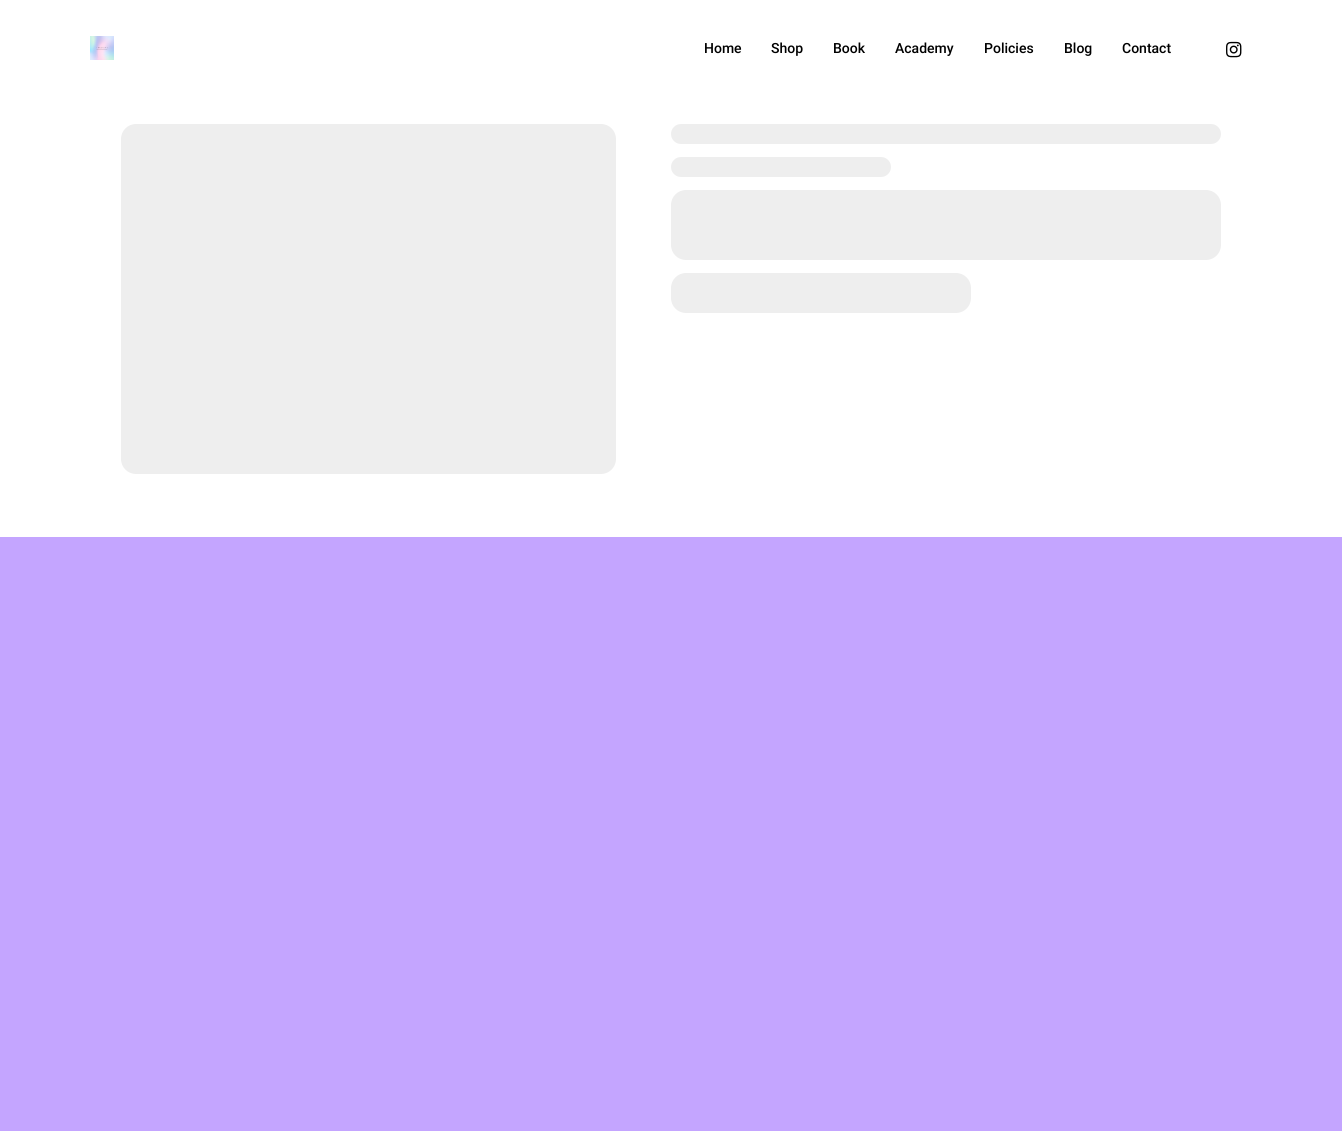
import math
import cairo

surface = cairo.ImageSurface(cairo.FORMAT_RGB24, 1342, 1131)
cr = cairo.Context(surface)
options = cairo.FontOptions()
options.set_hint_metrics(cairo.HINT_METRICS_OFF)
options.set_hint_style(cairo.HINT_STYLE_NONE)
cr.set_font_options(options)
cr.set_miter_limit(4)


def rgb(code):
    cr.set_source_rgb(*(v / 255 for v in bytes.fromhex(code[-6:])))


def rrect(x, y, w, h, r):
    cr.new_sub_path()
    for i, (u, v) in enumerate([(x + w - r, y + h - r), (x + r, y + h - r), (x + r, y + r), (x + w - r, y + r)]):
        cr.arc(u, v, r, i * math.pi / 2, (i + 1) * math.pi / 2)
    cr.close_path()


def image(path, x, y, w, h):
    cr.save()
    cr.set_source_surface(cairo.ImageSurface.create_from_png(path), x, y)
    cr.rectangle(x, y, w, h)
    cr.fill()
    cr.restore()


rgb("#c4a5ff")
cr.paint()
rgb("#ffffff")
cr.rectangle(0, 0, 1342, 537)
cr.fill()
image("img/1.png", 90, 36, 24, 24)
image("img/2.png", 1226, 41, 16, 17)
rgb("#eeeeee")
rrect(121, 124, 495, 350, 15)
cr.fill()
rrect(671, 124, 550, 20, 10)
cr.fill()
rrect(671, 157, 220, 20, 10)
cr.fill()
rrect(671, 190, 550, 70, 15)
cr.fill()
rrect(671, 273, 300, 40, 15)
cr.fill()
cr.select_font_face("Roboto Medium")
cr.set_font_size(14)
rgb("#000000")
for x, y, s in [
    (704, 53, "Home"),
    (771, 53, "Shop"),
    (833, 53, "Book"),
    (895, 53, "Academy"),
    (984, 53, "Policies"),
    (1064, 53, "Blog"),
    (1122, 53, "Contact"),
]:
    cr.move_to(x, y)
    cr.show_text(s)
surface.write_to_png("page.png")
